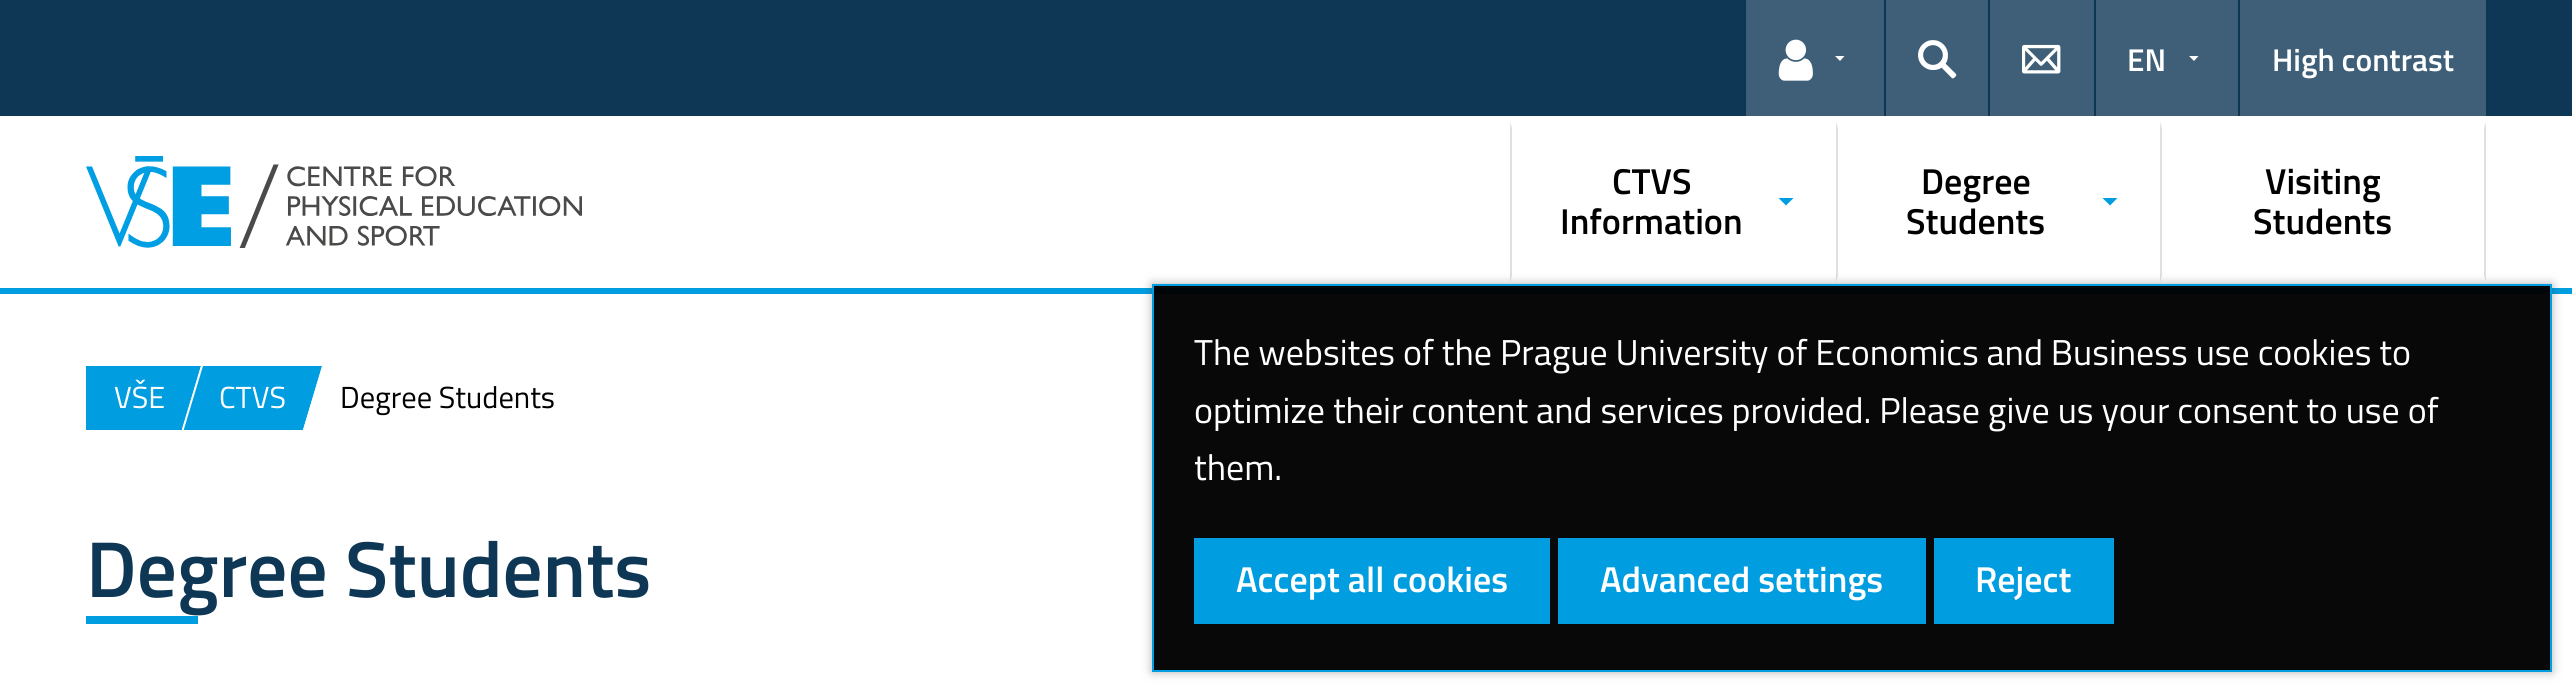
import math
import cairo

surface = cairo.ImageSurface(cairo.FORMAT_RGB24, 2572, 691)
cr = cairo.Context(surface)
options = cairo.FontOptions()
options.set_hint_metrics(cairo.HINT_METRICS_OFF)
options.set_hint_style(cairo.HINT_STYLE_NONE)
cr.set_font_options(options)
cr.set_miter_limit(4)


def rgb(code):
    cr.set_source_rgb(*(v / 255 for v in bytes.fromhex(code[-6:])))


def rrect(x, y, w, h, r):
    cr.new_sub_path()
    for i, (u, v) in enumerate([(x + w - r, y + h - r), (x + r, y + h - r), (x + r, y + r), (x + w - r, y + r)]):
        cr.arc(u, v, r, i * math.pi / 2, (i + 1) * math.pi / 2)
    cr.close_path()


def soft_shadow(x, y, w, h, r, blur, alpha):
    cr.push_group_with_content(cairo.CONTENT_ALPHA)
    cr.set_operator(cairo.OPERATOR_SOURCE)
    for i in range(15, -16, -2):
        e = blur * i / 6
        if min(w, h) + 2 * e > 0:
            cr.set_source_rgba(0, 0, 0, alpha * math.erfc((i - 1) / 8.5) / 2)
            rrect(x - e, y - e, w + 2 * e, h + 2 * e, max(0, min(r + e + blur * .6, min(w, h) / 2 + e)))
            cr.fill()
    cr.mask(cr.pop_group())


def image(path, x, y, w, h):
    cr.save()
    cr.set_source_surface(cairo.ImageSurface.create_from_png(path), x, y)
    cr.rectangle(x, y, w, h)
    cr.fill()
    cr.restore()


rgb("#ffffff")
cr.paint()
for x, y, w, h, color in [
    (1154, 286, 1396, 384, "#080808"),
    (0, 0, 2572, 116, "#0e3755"),
    (1746, 0, 138, 116, "#3e5f77"),
]:
    rgb(color)
    cr.rectangle(x, y, w, h)
    cr.fill()
image("img/1.png", 1778, 39, 35, 42)
rgb("#ffffff")
cr.new_path()
cr.move_to(1835, 56)
cr.line_to(1844.5, 56)
cr.line_to(1840, 61)
cr.close_path()
cr.fill()
rgb("#3e5f77")
cr.rectangle(1886, 0, 102, 116)
cr.fill()
image("img/2.png", 1918, 40, 39, 39)
cr.rectangle(1990, 0, 104, 116)
cr.fill()
image("img/3.png", 2022, 44, 39, 30)
cr.rectangle(2096, 0, 142, 116)
cr.fill()
rgb("#ffffff")
cr.new_path()
cr.move_to(2189, 56)
cr.line_to(2198.5, 56)
cr.line_to(2194, 61)
cr.close_path()
cr.fill()
for x, y, w, h, color in [
    (2240, 0, 246, 116, "#3e5f77"),
    (0, 288, 2572, 6, "#009ee0"),
    (1152, 288, 1400, 6, "#000507"),
]:
    rgb(color)
    cr.rectangle(x, y, w, h)
    cr.fill()
image("img/4.png", 86, 156, 496, 92)
rgb("#e0e0e0")
cr.new_path()
cr.move_to(1510, 282)
cr.line_to(1510, 122)
cr.line_to(1512, 128)
cr.line_to(1512, 276)
cr.close_path()
cr.fill()
rgb("#009ee0")
cr.new_path()
cr.move_to(1778.5, 198)
cr.line_to(1793.5, 198)
cr.line_to(1786, 205.5)
cr.close_path()
cr.fill()
rgb("#e0e0e0")
cr.new_path()
cr.move_to(1836, 282)
cr.line_to(1836, 122)
cr.line_to(1838, 128)
cr.line_to(1838, 276)
cr.close_path()
cr.fill()
rgb("#009ee0")
cr.new_path()
cr.move_to(2102.5, 198)
cr.line_to(2117.5, 198)
cr.line_to(2110, 205.5)
cr.close_path()
cr.fill()
rgb("#e0e0e0")
cr.new_path()
cr.move_to(2486, 122)
cr.line_to(2486, 282)
cr.line_to(2484, 276)
cr.line_to(2484, 128)
cr.close_path()
cr.fill()
rgb("#ffffff")
cr.new_path()
cr.move_to(2486, 282)
cr.line_to(2160, 282)
cr.line_to(2162, 276)
cr.line_to(2484, 276)
cr.close_path()
cr.fill()
rgb("#e0e0e0")
cr.new_path()
cr.move_to(2160, 282)
cr.line_to(2160, 122)
cr.line_to(2162, 128)
cr.line_to(2162, 276)
cr.close_path()
cr.fill()
rgb("#009ee0")
cr.new_path()
cr.move_to(86, 366)
cr.line_to(86, 430)
cr.line_to(182, 430)
cr.line_to(201, 366)
cr.close_path()
cr.fill()
rgb("#ffffff")
cr.new_path()
cr.move_to(182, 429)
cr.line_to(201, 366)
cr.line_to(322, 366)
cr.line_to(322, 367)
cr.line_to(303, 430)
cr.line_to(182, 430)
cr.close_path()
cr.fill()
rgb("#009ee0")
cr.new_path()
cr.move_to(184, 429)
cr.line_to(203, 366)
cr.line_to(322, 366)
cr.line_to(322, 367)
cr.line_to(303, 430)
cr.line_to(184, 430)
cr.close_path()
cr.fill()
rgb("#ffffff")
cr.new_path()
cr.move_to(303, 430)
cr.line_to(322, 366)
cr.line_to(592, 366)
cr.line_to(572, 430)
cr.close_path()
cr.fill()
rgb("#009ee0")
cr.rectangle(86, 616, 112, 8)
cr.fill()
cr.save()
cr.set_fill_rule(cairo.FILL_RULE_EVEN_ODD)
cr.new_path()
cr.move_to(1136, 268)
cr.line_to(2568, 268)
cr.line_to(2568, 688)
cr.line_to(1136, 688)
cr.close_path()
cr.move_to(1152, 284)
cr.line_to(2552, 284)
cr.line_to(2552, 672)
cr.line_to(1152, 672)
cr.close_path()
cr.clip()
rgb("#343a40")
soft_shadow(1152, 284, 1400, 388, 0, 5, 0.4)
cr.restore()
cr.rectangle(1153, 285, 1398, 386)
cr.stroke()
for x, y, w, h, color in [
    (1194, 538, 356, 86, "#009ee0"),
    (1558, 538, 368, 86, "#009ee0"),
    (1934, 538, 180, 86, "#009ee0"),
]:
    rgb(color)
    cr.rectangle(x, y, w, h)
    cr.fill()
cr.select_font_face("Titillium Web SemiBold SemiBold")
cr.set_font_size(31.5)
rgb("#ffffff")
cr.move_to(2127, 71)
cr.show_text("EN")
cr.move_to(2272, 71)
cr.show_text("High contrast")
cr.set_font_size(36)
rgb("#000000")
for x, y, s in [
    (1612, 194, "CTVS"),
    (1560, 234, "Information"),
    (1921, 194, "Degree"),
    (1906, 234, "Students"),
    (2265, 194, "Visiting"),
    (2253, 234, "Students"),
]:
    cr.move_to(x, y)
    cr.show_text(s)
cr.select_font_face("Titillium Web")
cr.set_font_size(30.5)
rgb("#ffffff")
cr.move_to(114, 408)
cr.show_text("VŠE")
cr.move_to(219, 408)
cr.show_text("CTVS")
rgb("#000000")
cr.move_to(340, 408)
cr.show_text("Degree Students")
cr.select_font_face("Titillium Web SemiBold SemiBold")
cr.set_font_size(79.25)
rgb("#0e3755")
cr.move_to(86, 597)
cr.show_text("Degree Students")
cr.select_font_face("Titillium Web")
cr.set_font_size(36)
rgb("#ffffff")
for x, y, s in [
    (1194, 365, "The websites of the Prague University of Economics and Business use cookies to"),
    (1194, 423, "optimize their content and services provided. Please give us your consent to use of"),
    (1194, 480, "them."),
]:
    cr.move_to(x, y)
    cr.show_text(s)
cr.select_font_face("Titillium Web SemiBold SemiBold")
for x, y, s in [
    (1236, 592, "Accept all cookies"),
    (1600, 592, "Advanced settings"),
    (1975, 592, "Reject"),
]:
    cr.move_to(x, y)
    cr.show_text(s)
surface.write_to_png("page.png")
